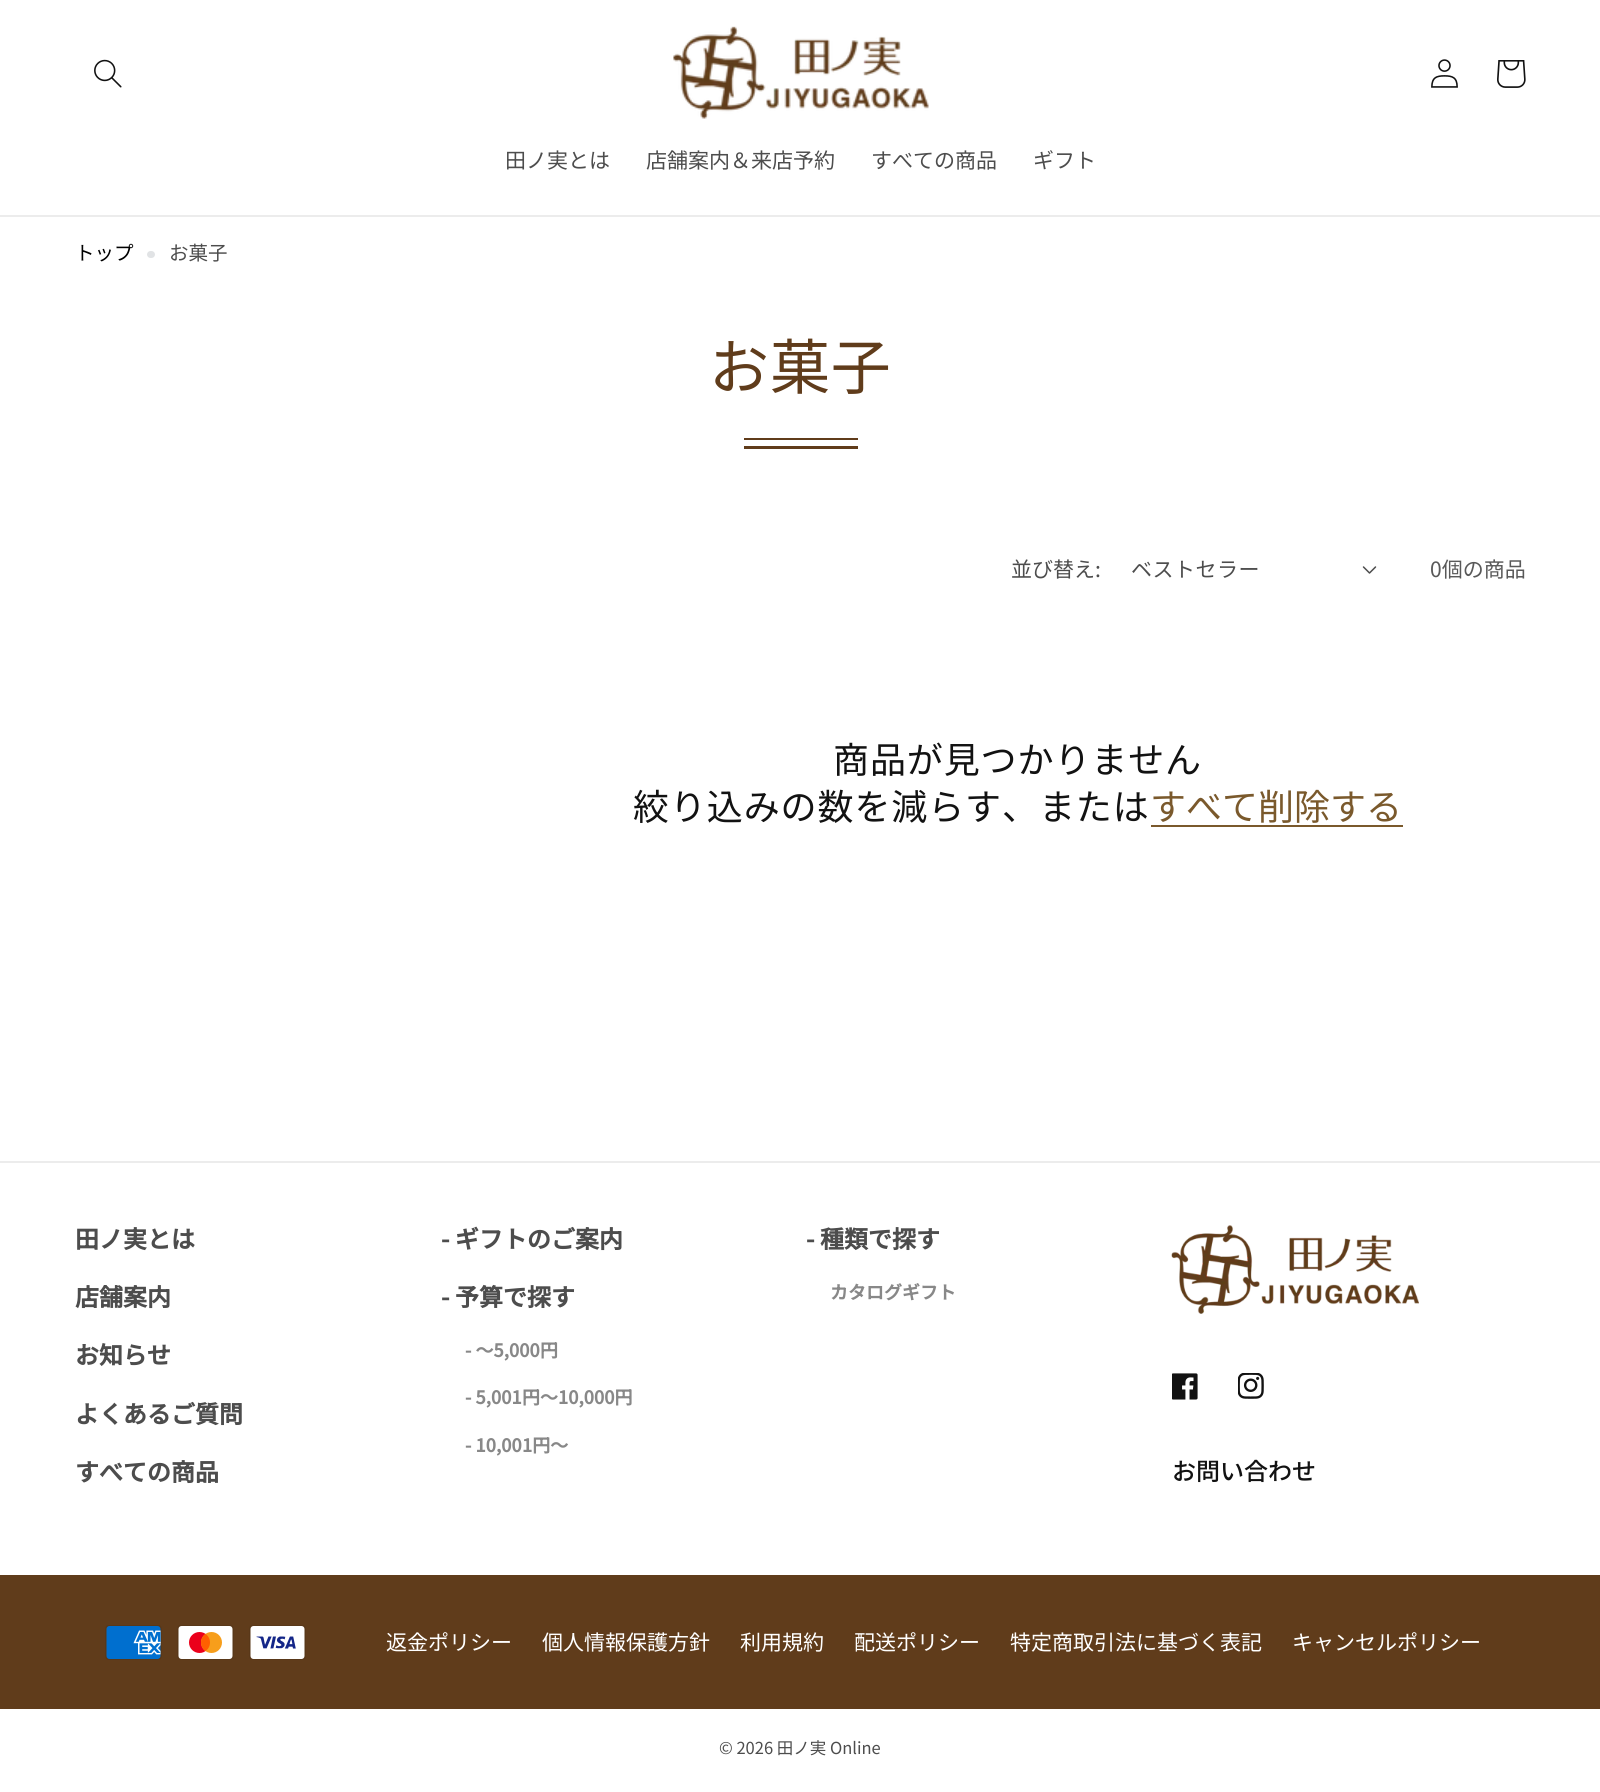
import math
import cairo

surface = cairo.ImageSurface(cairo.FORMAT_RGB24, 1600, 1792)
cr = cairo.Context(surface)
options = cairo.FontOptions()
options.set_hint_metrics(cairo.HINT_METRICS_OFF)
options.set_hint_style(cairo.HINT_STYLE_NONE)
cr.set_font_options(options)
cr.set_miter_limit(4)


def rgb(code):
    cr.set_source_rgb(*(v / 255 for v in bytes.fromhex(code[-6:])))


def tracked(x, y, s, letter, word):
    cr.move_to(x, y)
    for ch in s:
        cr.show_text(ch)
        cr.rel_move_to(letter + word * (ch == ' '), 0)


def rrect(x, y, w, h, r):
    cr.new_sub_path()
    for i, (u, v) in enumerate([(x + w - r, y + h - r), (x + r, y + h - r), (x + r, y + r), (x + w - r, y + r)]):
        cr.arc(u, v, r, i * math.pi / 2, (i + 1) * math.pi / 2)
    cr.close_path()


def image(path, x, y, w, h):
    cr.save()
    cr.set_source_surface(cairo.ImageSurface.create_from_png(path), x, y)
    cr.rectangle(x, y, w, h)
    cr.fill()
    cr.restore()


rgb("#ffffff")
cr.paint()
rgb("#ececec")
cr.rectangle(0, 215, 1600, 2)
cr.fill()
image("img/1.png", 94, 59, 28, 29)
image("img/2.png", 673, 26, 256, 93)
image("img/3.png", 1431, 59, 27, 29)
image("img/4.png", 1497, 60, 29, 28)
rgb("#e1e3e5")
rrect(147, 251, 8, 7, 3.5)
cr.fill()
rgb("#603c1b")
cr.rectangle(744, 438, 114, 2)
cr.fill()
cr.rectangle(744, 446, 114, 3)
cr.fill()
image("img/5.png", 1362, 566, 15, 8)
rgb("#7a592c")
cr.rectangle(1151, 825, 252, 2)
cr.fill()
rgb("#ececec")
cr.rectangle(0, 1161, 1600, 2)
cr.fill()
image("img/6.png", 1171, 1225, 248, 89)
image("img/7.png", 1172, 1373, 26, 27)
image("img/8.png", 1238, 1373, 26, 26)
rgb("#603c1b")
cr.rectangle(0, 1575, 1600, 134)
cr.fill()
image("img/9.png", 105, 1625, 57, 35)
image("img/10.png", 177, 1625, 57, 35)
image("img/11.png", 249, 1625, 57, 35)
cr.select_font_face("Noto Sans JP")
cr.set_font_size(21)
rgb("#4d4d4d")
for x, y, s in [
    (505, 168, "田ノ実とは"),
    (646, 168, "店舗案内＆来店予約"),
    (871, 168, "すべての商品"),
    (1033, 168, "ギフト"),
]:
    cr.move_to(x, y)
    cr.show_text(s)
cr.set_font_size(19.5)
rgb("#000000")
cr.move_to(75, 260)
cr.show_text("トップ")
rgb("#4d4d4d")
cr.move_to(169, 260)
cr.show_text("お菓子")
cr.set_font_size(60)
rgb("#603c1b")
tracked(709, 389, "お菓子", 0.9, 0)
cr.set_font_size(21)
rgb("#4d4d4d")
cr.move_to(1011, 577)
cr.show_text("並び替え:")
tracked(1131, 577, "ベストセラー", 0.5, 0)
rgb("#595959")
cr.move_to(1430, 577)
cr.show_text("0個の商品")
cr.set_font_size(36)
rgb("#121212")
tracked(833, 773, "商品が見つかりません", 0.9, 0)
tracked(633, 820, "絞り込みの数を減らす、または", 0.9, 0)
rgb("#7a592c")
cr.move_to(1150, 820)
cr.show_text("すべて削除する")
cr.select_font_face("Noto Sans JP", cairo.FONT_SLANT_NORMAL, cairo.FONT_WEIGHT_BOLD)
cr.set_font_size(24)
rgb("#4d4d4d")
for x, y, s in [
    (75, 1248, "田ノ実とは"),
    (75, 1306, "店舗案内"),
    (75, 1364, "お知らせ"),
    (75, 1423, "よくあるご質問"),
    (75, 1481, "すべての商品"),
    (441, 1248, "- ギフトのご案内"),
    (441, 1306, "- 予算で探す"),
]:
    cr.move_to(x, y)
    cr.show_text(s)
cr.set_font_size(18)
rgb("#888888")
for x, y, s in [
    (465, 1357, "- 〜5,000円"),
    (465, 1404, "- 5,001円〜10,000円"),
    (465, 1452, "- 10,001円〜"),
]:
    cr.move_to(x, y)
    cr.show_text(s)
cr.set_font_size(24)
rgb("#4d4d4d")
cr.move_to(806, 1248)
cr.show_text("- 種類で探す")
cr.set_font_size(18)
rgb("#888888")
cr.move_to(830, 1299)
cr.show_text("カタログギフト")
cr.select_font_face("Noto Sans JP Medium")
cr.set_font_size(24)
rgb("#121212")
cr.move_to(1172, 1480)
cr.show_text("お問い合わせ")
cr.select_font_face("Noto Sans JP")
cr.set_font_size(21)
rgb("#ffffff")
for x, y, s in [
    (386, 1650, "返金ポリシー"),
    (542, 1650, "個人情報保護方針"),
    (740, 1650, "利用規約"),
    (854, 1650, "配送ポリシー"),
    (1010, 1650, "特定商取引法に基づく表記"),
    (1292, 1650, "キャンセルポリシー"),
]:
    cr.move_to(x, y)
    cr.show_text(s)
cr.set_font_size(16.5)
rgb("#4d4d4d")
cr.move_to(719, 1754)
cr.show_text("© 2026 田ノ実 Online")
surface.write_to_png("page.png")
